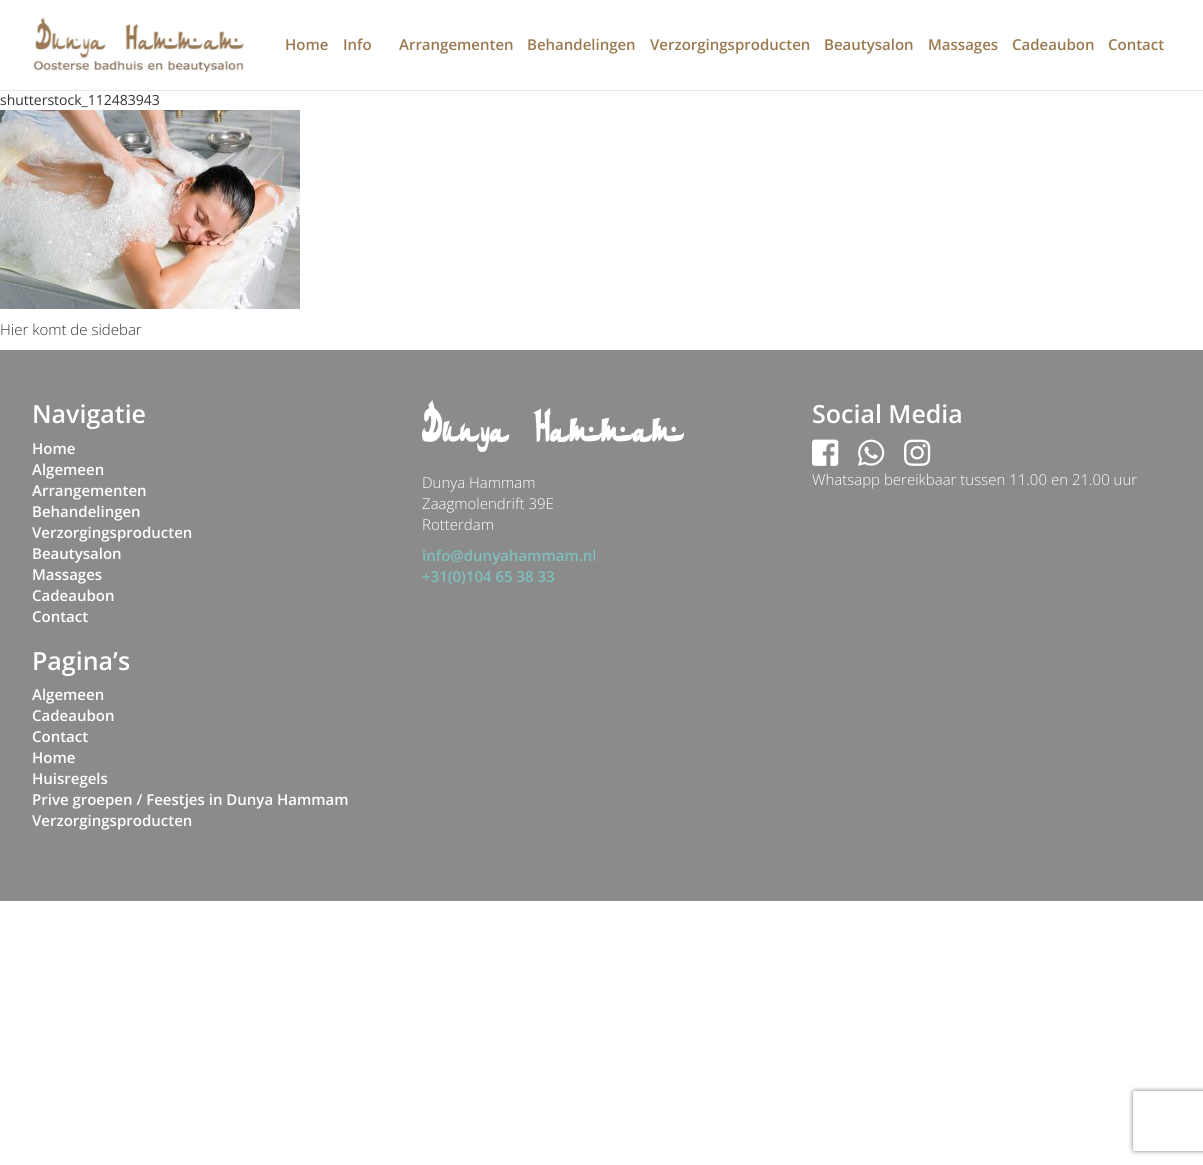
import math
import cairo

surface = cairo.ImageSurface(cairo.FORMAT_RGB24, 1203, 1165)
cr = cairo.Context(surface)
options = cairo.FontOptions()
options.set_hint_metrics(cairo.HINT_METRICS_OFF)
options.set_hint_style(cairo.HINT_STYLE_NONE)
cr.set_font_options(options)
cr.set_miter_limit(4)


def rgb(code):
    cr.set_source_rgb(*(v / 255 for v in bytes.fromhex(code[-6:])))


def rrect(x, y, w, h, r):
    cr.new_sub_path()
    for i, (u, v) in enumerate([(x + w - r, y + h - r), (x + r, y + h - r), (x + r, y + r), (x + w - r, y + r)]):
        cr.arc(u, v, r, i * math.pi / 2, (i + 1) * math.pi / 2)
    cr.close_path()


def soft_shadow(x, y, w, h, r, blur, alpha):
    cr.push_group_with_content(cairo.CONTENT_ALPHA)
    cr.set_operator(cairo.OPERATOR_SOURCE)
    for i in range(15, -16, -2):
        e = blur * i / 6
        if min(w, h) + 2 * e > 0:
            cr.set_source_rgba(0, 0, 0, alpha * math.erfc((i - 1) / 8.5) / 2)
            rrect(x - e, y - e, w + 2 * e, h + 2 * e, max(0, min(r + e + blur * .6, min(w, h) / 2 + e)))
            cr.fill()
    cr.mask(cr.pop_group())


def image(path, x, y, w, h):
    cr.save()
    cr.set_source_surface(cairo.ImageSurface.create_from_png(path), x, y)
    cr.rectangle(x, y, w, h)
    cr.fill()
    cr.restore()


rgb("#ffffff")
cr.paint()
rgb("#e9e9e9")
cr.rectangle(0, 90, 1203, 1)
cr.fill()
image("img/1.png", 33, 17, 211, 56)
image("img/2.png", 0, 110, 300, 199)
rgb("#8b8b8b")
cr.rectangle(0, 350, 1203, 551)
cr.fill()
image("img/3.png", 812, 439, 27, 27)
image("img/4.png", 858, 439, 27, 27)
image("img/5.png", 904, 439, 27, 27)
image("img/6.png", 422, 400, 262, 52)
cr.save()
cr.set_fill_rule(cairo.FILL_RULE_EVEN_ODD)
cr.new_path()
cr.move_to(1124, 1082)
cr.line_to(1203, 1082)
cr.line_to(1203, 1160)
cr.line_to(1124, 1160)
cr.close_path()
cr.move_to(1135, 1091)
cr.line_to(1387, 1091)
cr.curve_to(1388, 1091, 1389, 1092, 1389, 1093)
cr.line_to(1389, 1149)
cr.curve_to(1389, 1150, 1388, 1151, 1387, 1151)
cr.line_to(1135, 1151)
cr.curve_to(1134, 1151, 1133, 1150, 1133, 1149)
cr.line_to(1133, 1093)
cr.curve_to(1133, 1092, 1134, 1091, 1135, 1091)
cr.close_path()
cr.clip()
rgb("#808080")
soft_shadow(1133, 1091, 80, 60, 2, 2.5, 1)
cr.restore()
cr.select_font_face("Open Sans SemiBold")
cr.set_font_size(15)
rgb("#9a7950")
for x, y, s in [
    (285, 50, "Home"),
    (343, 50, "Info"),
    (399, 50, "Arrangementen"),
    (527, 50, "Behandelingen"),
    (650, 50, "Verzorgingsproducten"),
    (824, 50, "Beautysalon"),
    (928, 50, "Massages"),
    (1012, 50, "Cadeaubon"),
    (1108, 50, "Contact"),
]:
    cr.move_to(x, y)
    cr.show_text(s)
cr.select_font_face("Open Sans")
cr.set_font_size(14)
rgb("#333333")
cr.move_to(0, 105)
cr.show_text("shutterstock_112483943")
cr.select_font_face("Open Sans Light")
cr.set_font_size(15)
cr.move_to(0, 335)
cr.show_text("Hier komt de sidebar")
cr.select_font_face("Open Sans SemiBold")
cr.set_font_size(25)
rgb("#ffffff")
cr.move_to(32, 423)
cr.show_text("Navigatie")
cr.set_font_size(15)
for x, y, s in [
    (32, 454, "Home"),
    (32, 475, "Algemeen"),
    (32, 496, "Arrangementen"),
    (32, 517, "Behandelingen"),
    (32, 538, "Verzorgingsproducten"),
    (32, 559, "Beautysalon"),
    (32, 580, "Massages"),
    (32, 601, "Cadeaubon"),
    (32, 622, "Contact"),
]:
    cr.move_to(x, y)
    cr.show_text(s)
cr.set_font_size(25)
cr.move_to(32, 670)
cr.show_text("Pagina’s")
cr.set_font_size(15)
for x, y, s in [
    (32, 700, "Algemeen"),
    (32, 721, "Cadeaubon"),
    (32, 742, "Contact"),
    (32, 763, "Home"),
    (32, 784, "Huisregels"),
    (32, 805, "Prive groepen / Feestjes in Dunya Hammam"),
    (32, 826, "Verzorgingsproducten"),
]:
    cr.move_to(x, y)
    cr.show_text(s)
cr.set_font_size(25)
cr.move_to(812, 423)
cr.show_text("Social Media")
cr.select_font_face("Open Sans Light")
cr.set_font_size(15)
for x, y, s in [
    (812, 485, "Whatsapp bereikbaar tussen 11.00 en 21.00 uur"),
    (422, 488, "Dunya Hammam"),
    (422, 509, "Zaagmolendrift 39E"),
    (422, 530, "Rotterdam"),
]:
    cr.move_to(x, y)
    cr.show_text(s)
cr.select_font_face("Open Sans SemiBold")
rgb("#7ec0bd")
cr.move_to(422, 561)
cr.show_text("info@dunyahammam.nl")
cr.move_to(422, 582)
cr.show_text("+31(0)104 65 38 33")
surface.write_to_png("page.png")
